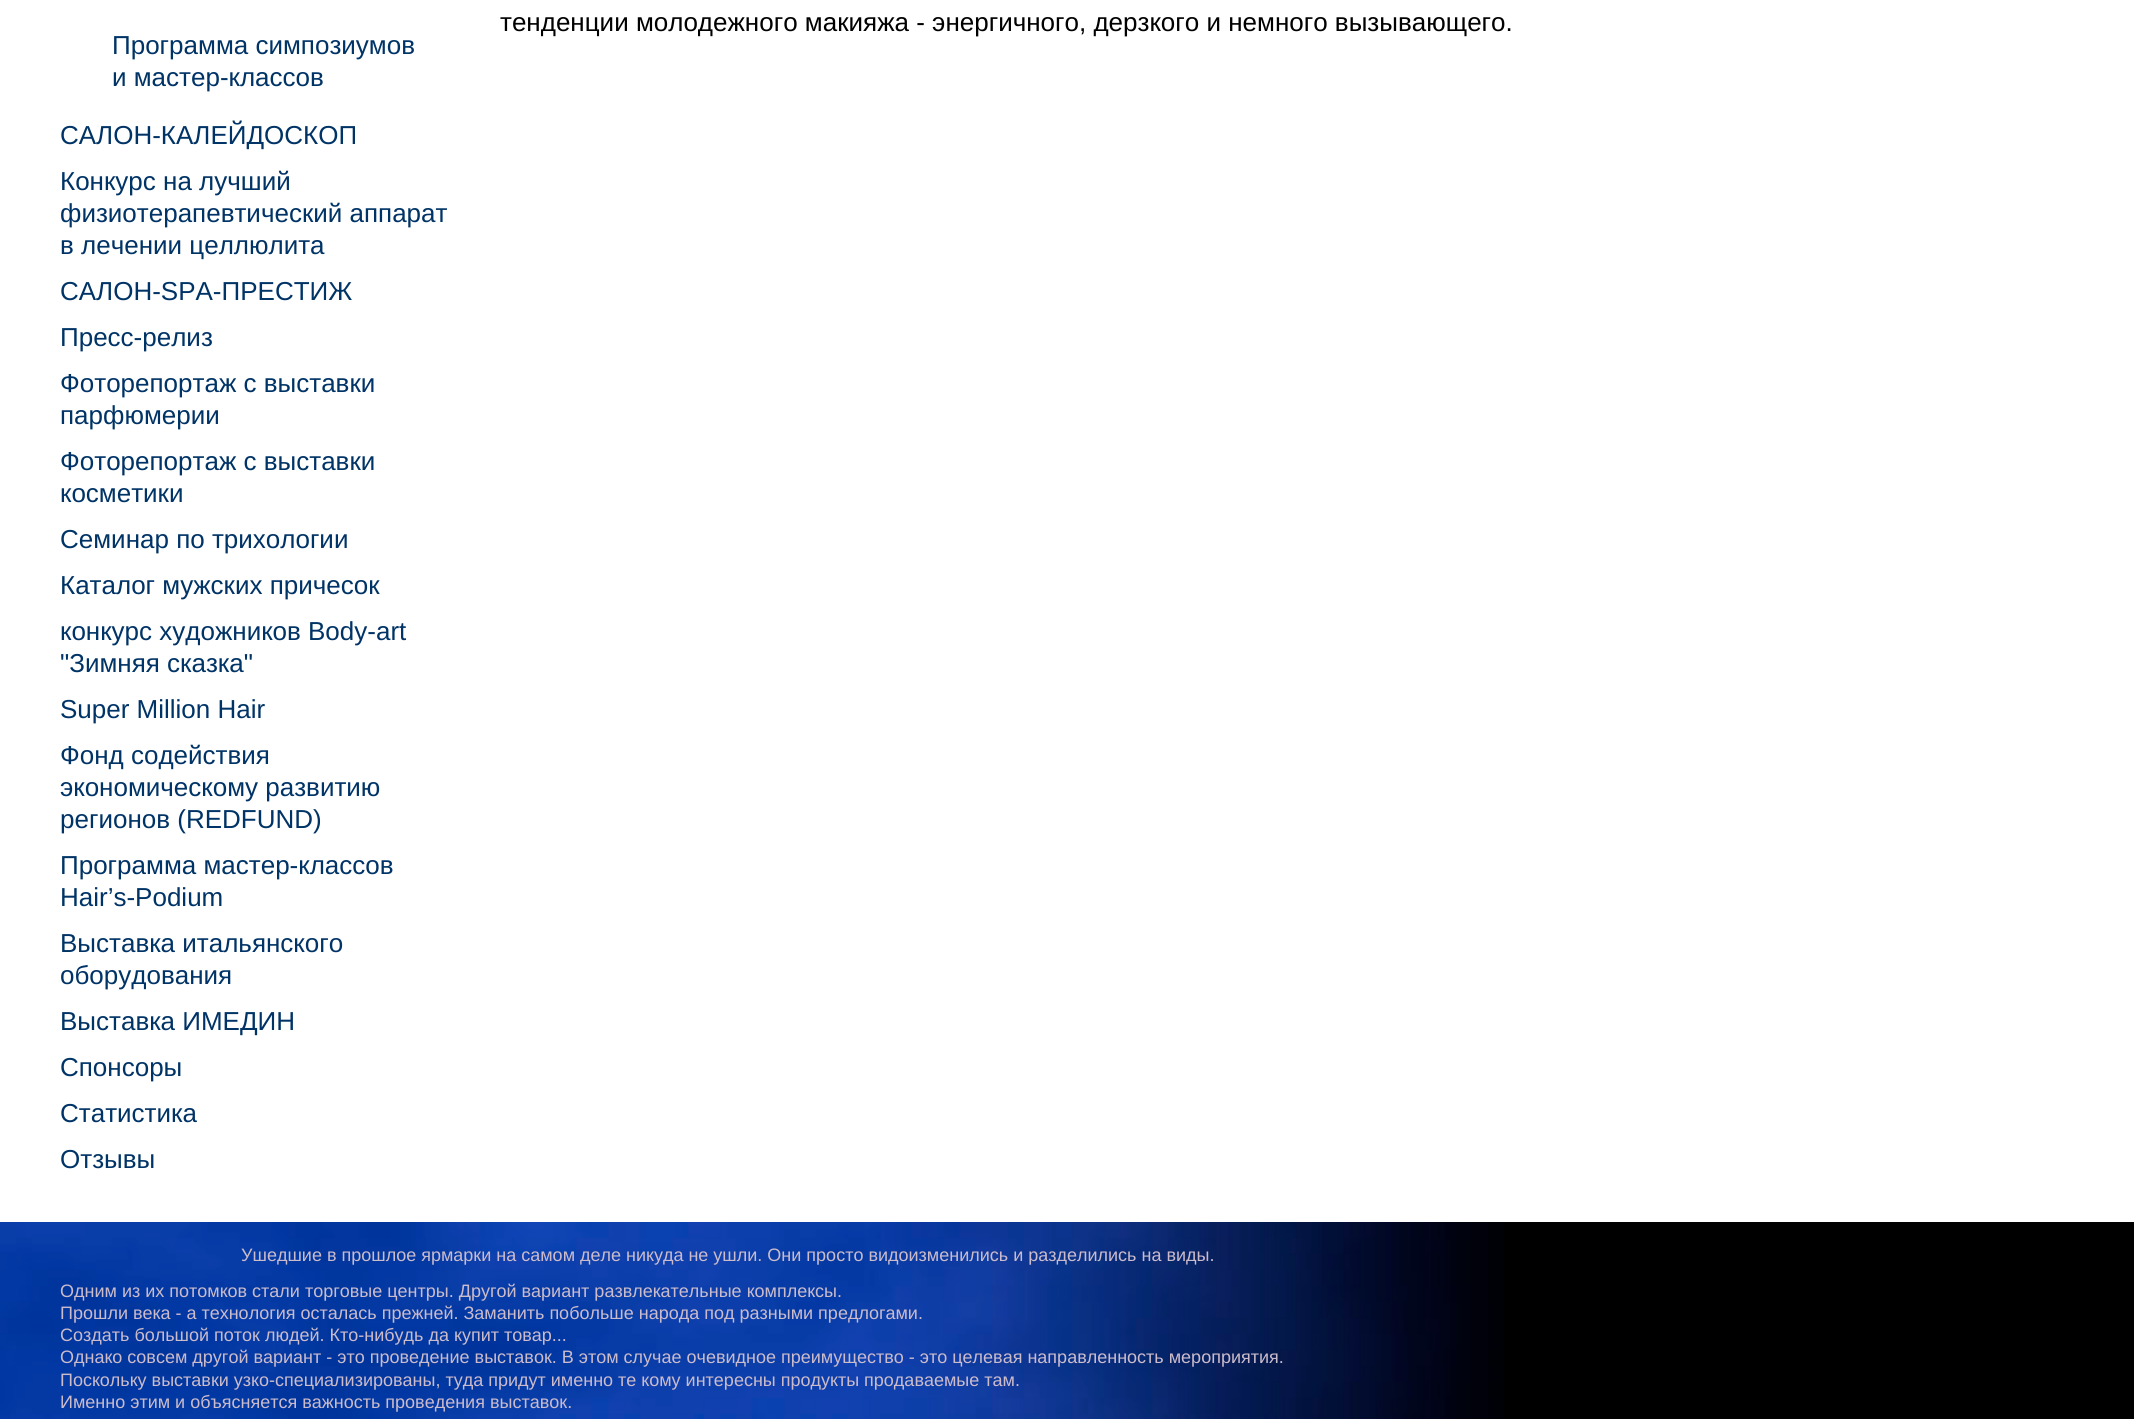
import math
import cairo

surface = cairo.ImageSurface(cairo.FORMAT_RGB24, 2134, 1419)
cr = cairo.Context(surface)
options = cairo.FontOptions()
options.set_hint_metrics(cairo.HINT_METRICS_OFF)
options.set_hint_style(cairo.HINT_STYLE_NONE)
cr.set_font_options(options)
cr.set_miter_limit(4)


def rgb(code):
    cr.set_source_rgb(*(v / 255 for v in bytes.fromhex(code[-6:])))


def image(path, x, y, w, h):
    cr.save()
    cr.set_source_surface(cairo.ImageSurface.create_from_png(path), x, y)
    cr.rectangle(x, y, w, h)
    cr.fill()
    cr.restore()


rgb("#ffffff")
cr.paint()
rgb("#000000")
cr.rectangle(1504, 1222, 630, 197)
cr.fill()
image("img/1.png", 0, 1222, 1504, 197)
cr.select_font_face("Liberation Sans")
cr.set_font_size(26)
cr.move_to(500, 31)
cr.show_text("тенденции молодежного макияжа - энергичного, дерзкого и немного вызывающего.")
rgb("#003366")
for x, y, s in [
    (112, 54, "Программа симпозиумов"),
    (112, 86, "и мастер-классов"),
    (60, 144, "САЛОН-КАЛЕЙДОСКОП"),
    (60, 190, "Конкурс на лучший"),
    (60, 222, "физиотерапевтический аппарат"),
    (60, 254, "в лечении целлюлита"),
    (60, 300, "САЛОН-SPA-ПРЕСТИЖ"),
    (60, 346, "Пресс-релиз"),
    (60, 392, "Фоторепортаж с выставки"),
    (60, 424, "парфюмерии"),
    (60, 470, "Фоторепортаж с выставки"),
    (60, 502, "косметики"),
    (60, 548, "Семинар по трихологии"),
    (60, 594, "Каталог мужских причесок"),
    (60, 640, "конкурс художников Body-art"),
    (60, 672, "\"Зимняя сказка\""),
    (60, 718, "Super Million Hair"),
    (60, 764, "Фонд содействия"),
    (60, 796, "экономическому развитию"),
    (60, 828, "регионов (REDFUND)"),
    (60, 874, "Программа мастер-классов"),
    (60, 906, "Hair’s-Podium"),
    (60, 952, "Выставка итальянского"),
    (60, 984, "оборудования"),
    (60, 1030, "Выставка ИМЕДИН"),
    (60, 1076, "Спонсоры"),
    (60, 1122, "Статистика"),
    (60, 1168, "Отзывы"),
]:
    cr.move_to(x, y)
    cr.show_text(s)
cr.set_font_size(18)
rgb("#cbbbcb")
for x, y, s in [
    (241, 1261, "Ушедшие в прошлое ярмарки на самом деле никуда не ушли. Они просто видоизменились и разделились на виды."),
    (60, 1297, "Одним из их потомков стали торговые центры. Другой вариант развлекательные комплексы."),
    (60, 1319, "Прошли века - а технология осталась прежней. Заманить побольше народа под разными предлогами."),
    (60, 1341, "Создать большой поток людей. Кто-нибудь да купит товар..."),
    (60, 1363, "Однако совсем другой вариант - это проведение выставок. В этом случае очевидное преимущество - это целевая направленность мероприятия."),
    (60, 1386, "Поскольку выставки узко-специализированы, туда придут именно те кому интересны продукты продаваемые там."),
    (60, 1408, "Именно этим и объясняется важность проведения выставок."),
]:
    cr.move_to(x, y)
    cr.show_text(s)
surface.write_to_png("page.png")
